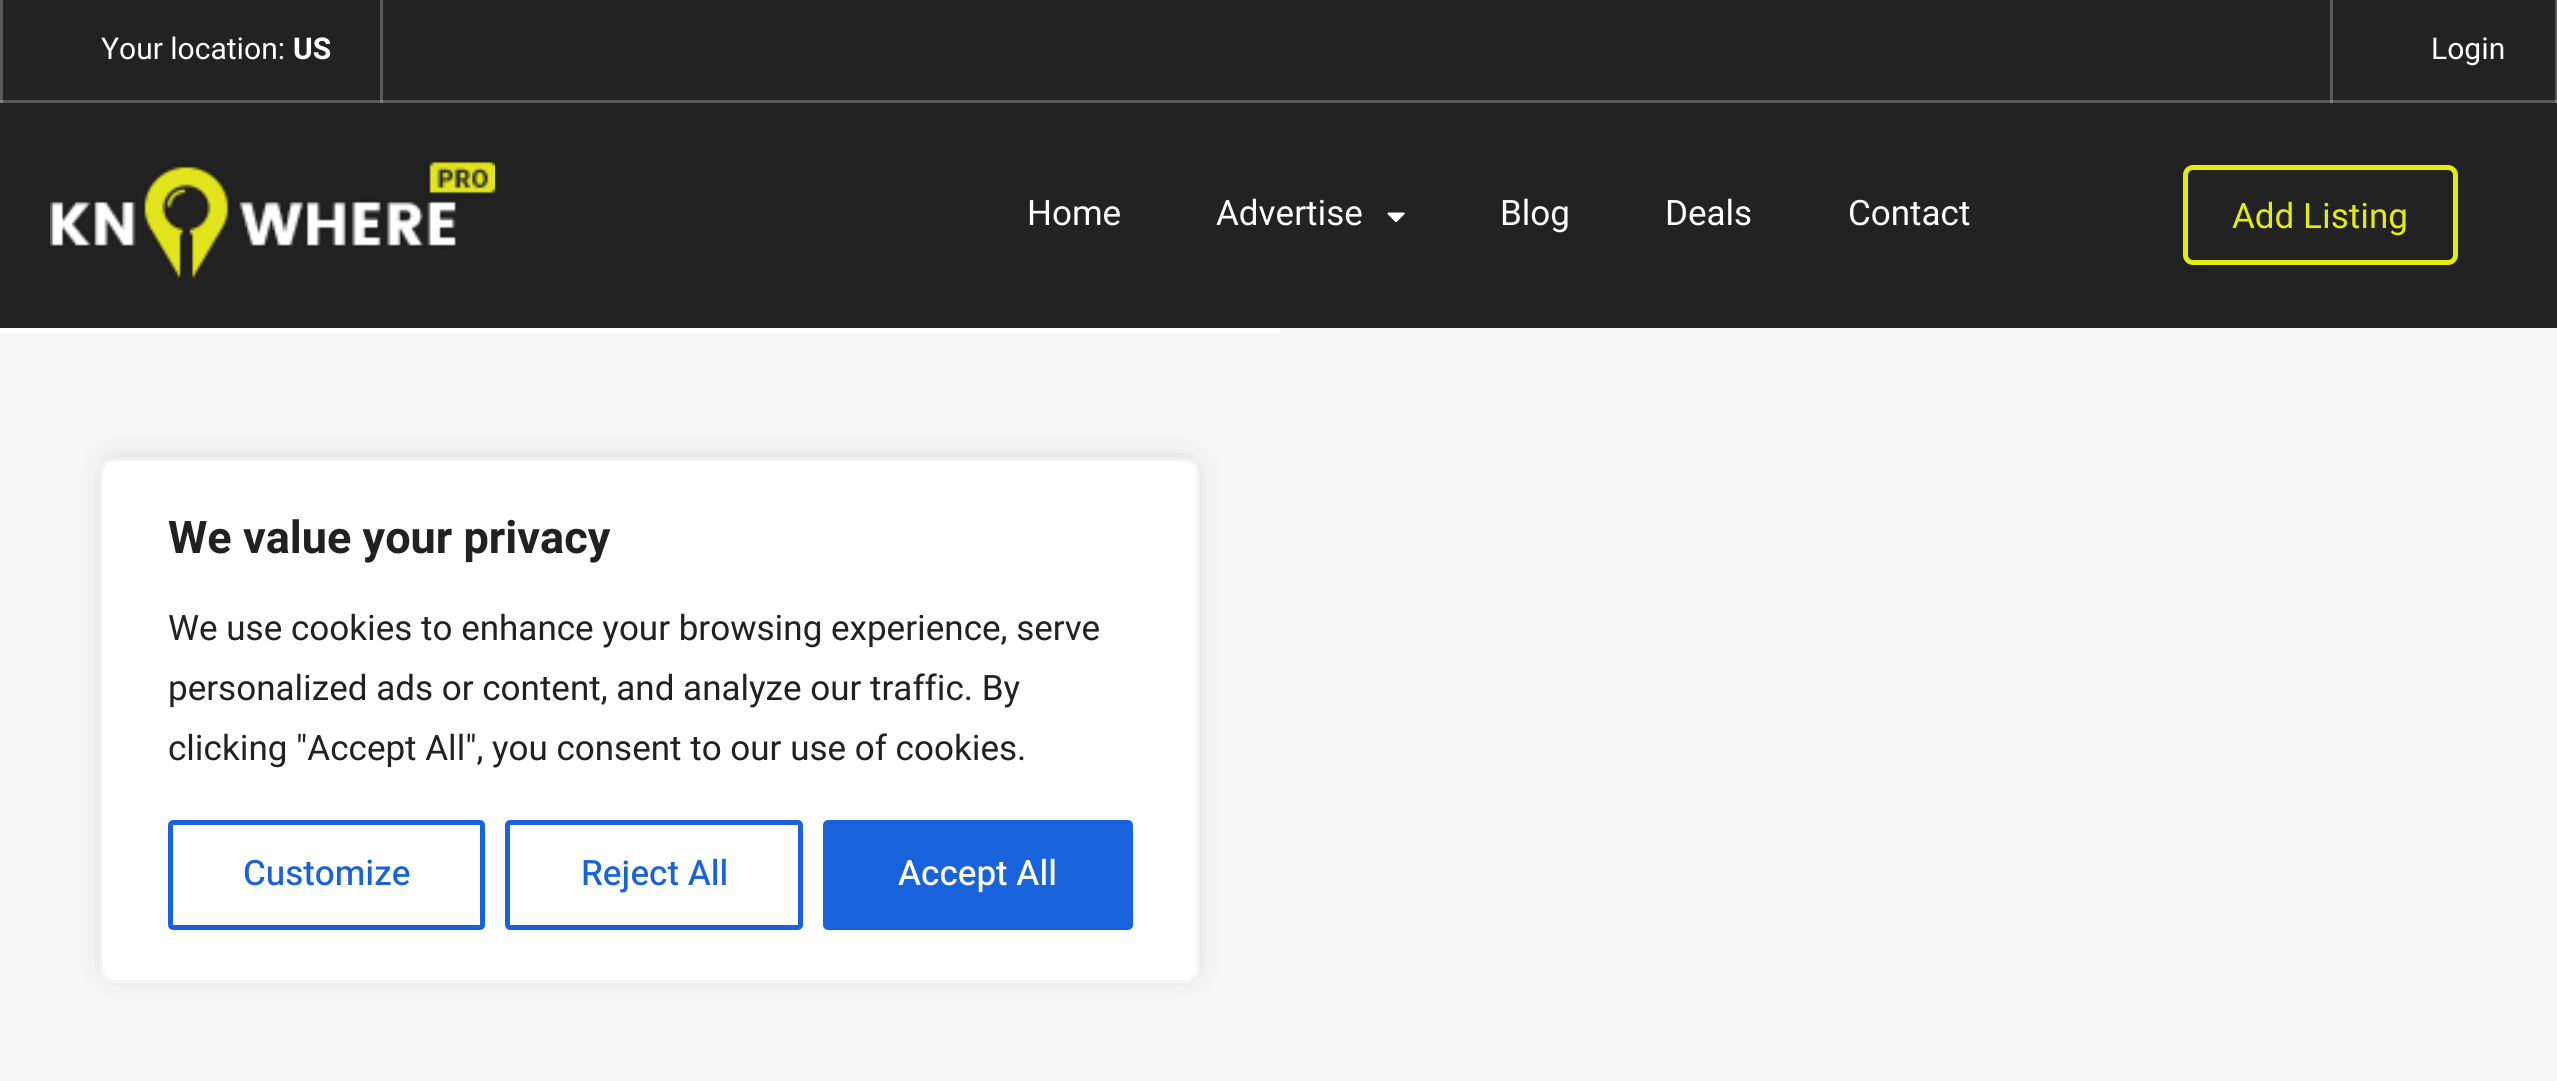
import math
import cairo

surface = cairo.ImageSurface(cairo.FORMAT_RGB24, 2557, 1081)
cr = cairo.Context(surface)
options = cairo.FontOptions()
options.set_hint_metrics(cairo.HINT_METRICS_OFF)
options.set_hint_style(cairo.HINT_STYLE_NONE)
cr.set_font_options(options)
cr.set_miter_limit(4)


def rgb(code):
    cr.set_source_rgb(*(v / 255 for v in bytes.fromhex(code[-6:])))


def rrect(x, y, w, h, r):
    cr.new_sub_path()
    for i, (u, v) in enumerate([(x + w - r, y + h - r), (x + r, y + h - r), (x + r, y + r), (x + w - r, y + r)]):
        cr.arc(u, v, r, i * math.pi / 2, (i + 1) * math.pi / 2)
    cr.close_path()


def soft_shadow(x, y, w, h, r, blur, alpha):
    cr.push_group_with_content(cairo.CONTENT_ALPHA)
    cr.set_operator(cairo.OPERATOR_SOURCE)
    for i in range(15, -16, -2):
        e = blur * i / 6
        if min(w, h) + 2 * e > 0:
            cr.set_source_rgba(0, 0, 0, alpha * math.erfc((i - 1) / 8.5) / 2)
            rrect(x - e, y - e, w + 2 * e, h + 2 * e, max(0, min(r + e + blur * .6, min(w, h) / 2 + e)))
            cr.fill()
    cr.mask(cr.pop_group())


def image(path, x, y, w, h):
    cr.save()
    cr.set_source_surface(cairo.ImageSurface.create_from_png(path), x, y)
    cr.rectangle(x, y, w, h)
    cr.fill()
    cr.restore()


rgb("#f7f7f7")
cr.paint()
for x, y, w, h, color in [
    (0, 0, 2557, 328, "#222222"),
    (2330, 0, 3, 103, "#595959"),
    (2555, 0, 2, 103, "#595959"),
    (0, 0, 3, 103, "#595959"),
    (380, 0, 3, 103, "#595959"),
    (0, 100, 2557, 3, "#595959"),
    (2330, 100, 3, 3, "#838383"),
    (2555, 100, 2, 3, "#838383"),
    (0, 100, 3, 3, "#838383"),
    (380, 100, 3, 3, "#838383"),
]:
    rgb(color)
    cr.rectangle(x, y, w, h)
    cr.fill()
image("img/1.png", 50, 160, 445, 118)
image("img/2.png", 1387, 212, 18, 11)
rrect(2185.5, 167.5, 270, 95, 7.5)
rgb("#e5eb0b")
cr.set_line_width(5)
cr.stroke()
rgb("#ffffff")
cr.rectangle(0, 328, 1280, 5)
cr.fill()
rgb("#acabab")
soft_shadow(100, 455, 1100, 525, 15, 12.5, 0.3)
rgb("#ffffff")
rrect(101.5, 459.5, 1097, 522, 13.5)
cr.fill_preserve()
rgb("#f4f4f4")
cr.set_line_width(3)
cr.stroke()
rrect(170.5, 822.5, 312, 105, 2.5)
rgb("#1863dc")
cr.set_line_width(5)
cr.stroke()
rrect(507.5, 822.5, 293, 105, 2.5)
cr.stroke()
rrect(825.5, 822.5, 305, 105, 2.5)
cr.fill_preserve()
cr.stroke()
cr.select_font_face("Heebo")
cr.set_font_size(30)
rgb("#ffffff")
cr.move_to(101, 59)
cr.show_text("Your location:")
cr.select_font_face("Heebo", cairo.FONT_SLANT_NORMAL, cairo.FONT_WEIGHT_BOLD)
cr.move_to(293, 59)
cr.show_text("US")
cr.select_font_face("Heebo")
cr.move_to(2431, 59)
cr.show_text("Login")
cr.set_font_size(35)
for x, y, s in [
    (1027, 225, "Home"),
    (1216, 225, "Advertise"),
    (1500, 225, "Blog"),
    (1665, 225, "Deals"),
    (1848, 225, "Contact"),
]:
    cr.move_to(x, y)
    cr.show_text(s)
rgb("#e5eb0b")
cr.move_to(2232, 228)
cr.show_text("Add Listing")
cr.select_font_face("Heebo", cairo.FONT_SLANT_NORMAL, cairo.FONT_WEIGHT_BOLD)
cr.set_font_size(45)
rgb("#212121")
cr.move_to(168, 553)
cr.show_text("We value your privacy")
cr.select_font_face("Heebo")
cr.set_font_size(35)
for x, y, s in [
    (168, 640, "We use cookies to enhance your browsing experience, serve"),
    (168, 700, "personalized ads or content, and analyze our traffic. By"),
    (168, 760, "clicking \"Accept All\", you consent to our use of cookies."),
]:
    cr.move_to(x, y)
    cr.show_text(s)
cr.select_font_face("Heebo Medium")
rgb("#1863dc")
cr.move_to(243, 885)
cr.show_text("Customize")
cr.move_to(581, 885)
cr.show_text("Reject All")
rgb("#ffffff")
cr.move_to(898, 885)
cr.show_text("Accept All")
surface.write_to_png("page.png")
